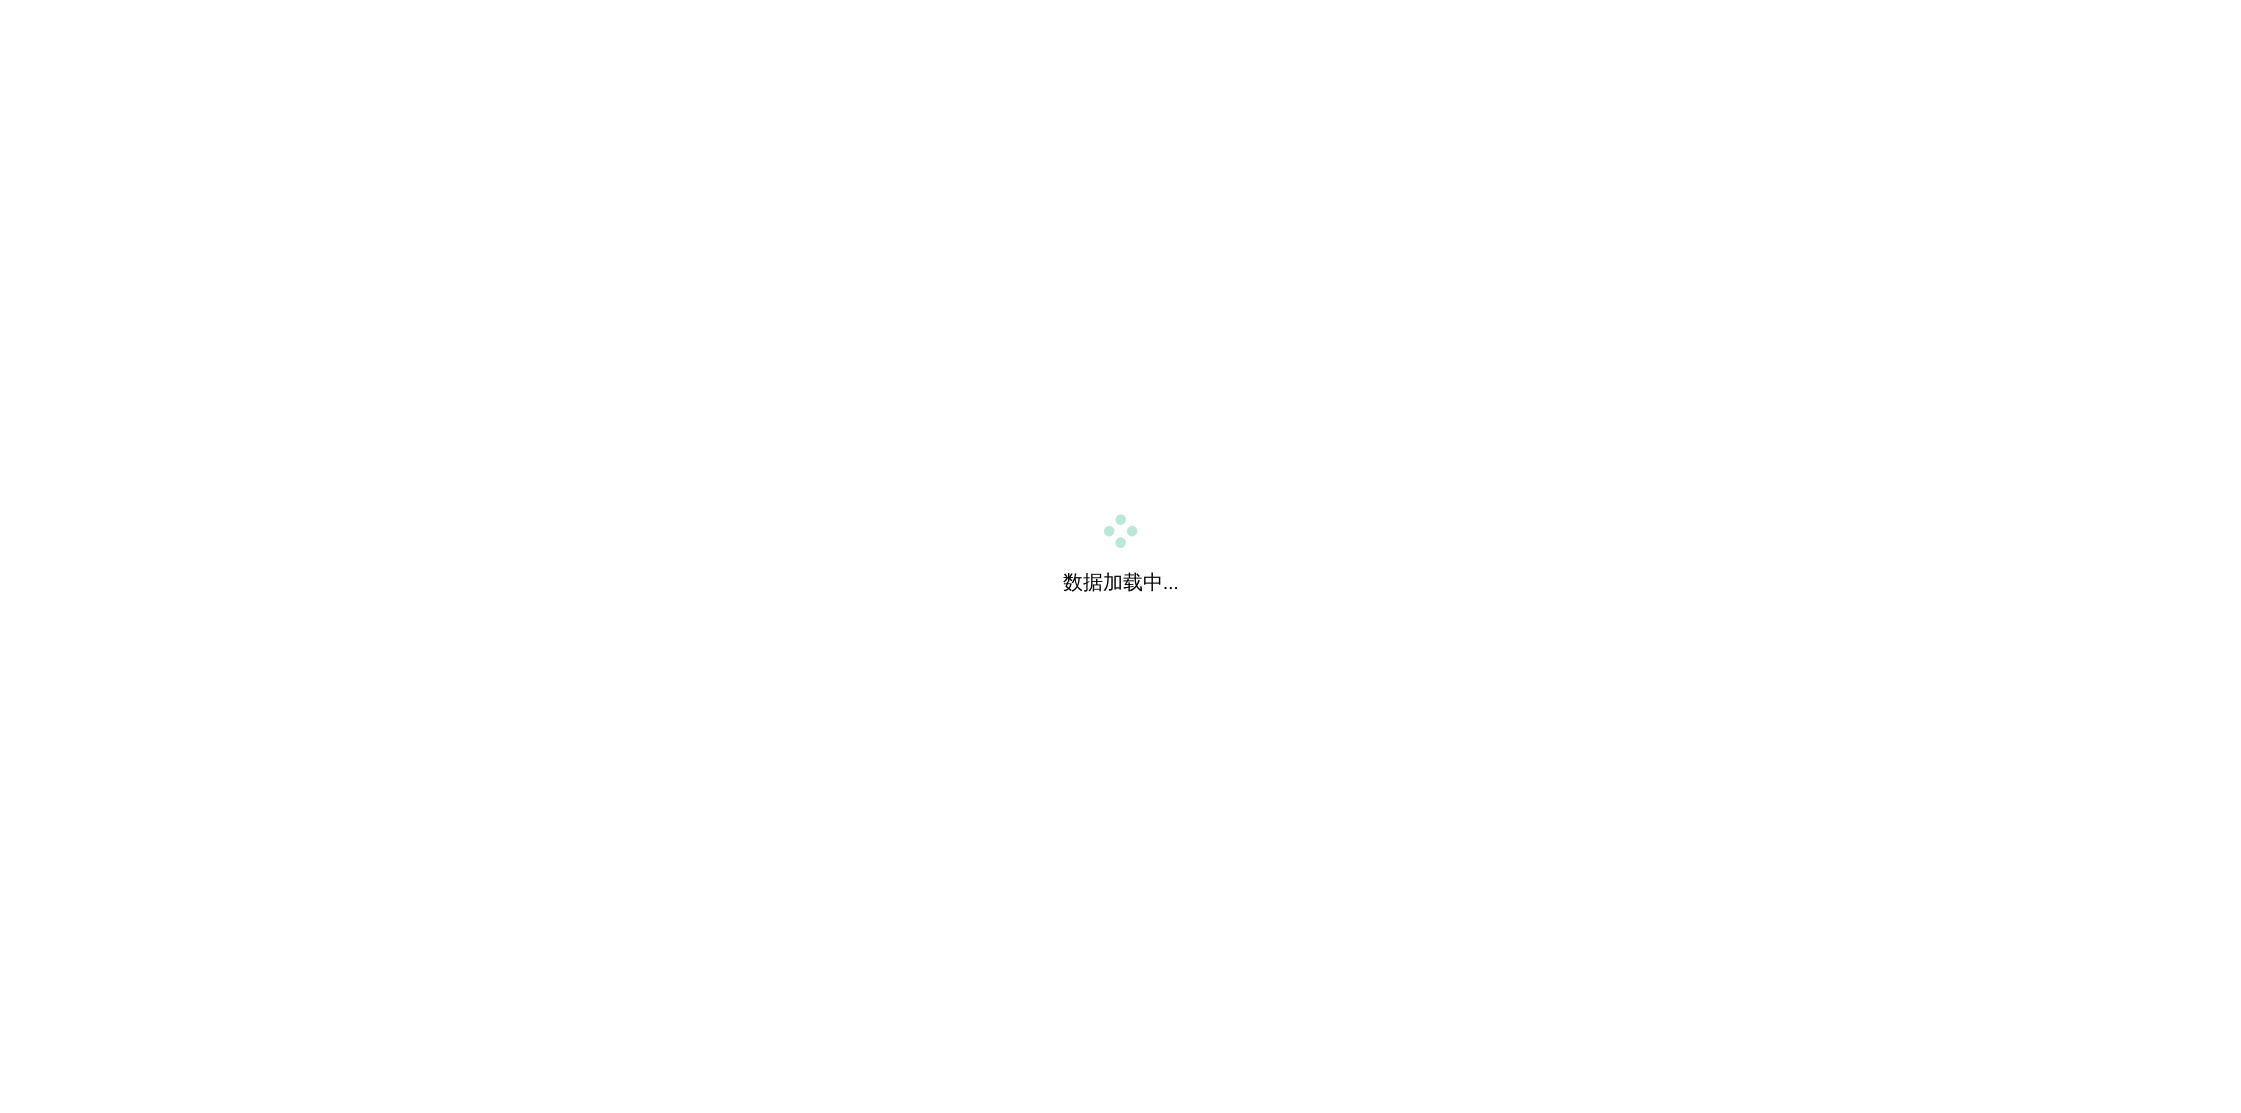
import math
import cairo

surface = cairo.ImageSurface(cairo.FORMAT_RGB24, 2241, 1113)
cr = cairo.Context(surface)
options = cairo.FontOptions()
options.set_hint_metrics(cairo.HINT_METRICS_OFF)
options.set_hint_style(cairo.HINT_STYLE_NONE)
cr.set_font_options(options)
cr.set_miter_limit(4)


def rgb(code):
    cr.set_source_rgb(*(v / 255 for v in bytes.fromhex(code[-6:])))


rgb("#ffffff")
cr.paint()
rgb("#bbe7da")
cr.new_path()
cr.move_to(1124.5, 516)
cr.curve_to(1129, 521, 1122, 528, 1117, 523.5)
cr.curve_to(1112, 518.5, 1119.5, 511, 1124.5, 516)
cr.close_path()
cr.move_to(1136, 527.5)
cr.curve_to(1140.5, 532.5, 1133.5, 539.5, 1128.5, 535)
cr.curve_to(1123.5, 530, 1131, 522.5, 1136, 527.5)
cr.close_path()
cr.move_to(1124.5, 539)
cr.curve_to(1129, 544, 1122, 551, 1117, 546.5)
cr.curve_to(1112, 541.5, 1119.5, 534, 1124.5, 539)
cr.close_path()
cr.move_to(1113, 527.5)
cr.curve_to(1117.5, 532.5, 1110.5, 539.5, 1105.5, 535)
cr.curve_to(1100.5, 530, 1108, 522.5, 1113, 527.5)
cr.close_path()
cr.fill()
cr.select_font_face("WenQuanYi Zen Hei Medium")
cr.set_font_size(20)
rgb("#000000")
cr.move_to(1063, 589)
cr.show_text("数据加载中")
cr.select_font_face("Roboto")
cr.move_to(1163, 589)
cr.show_text("...")
surface.write_to_png("page.png")
